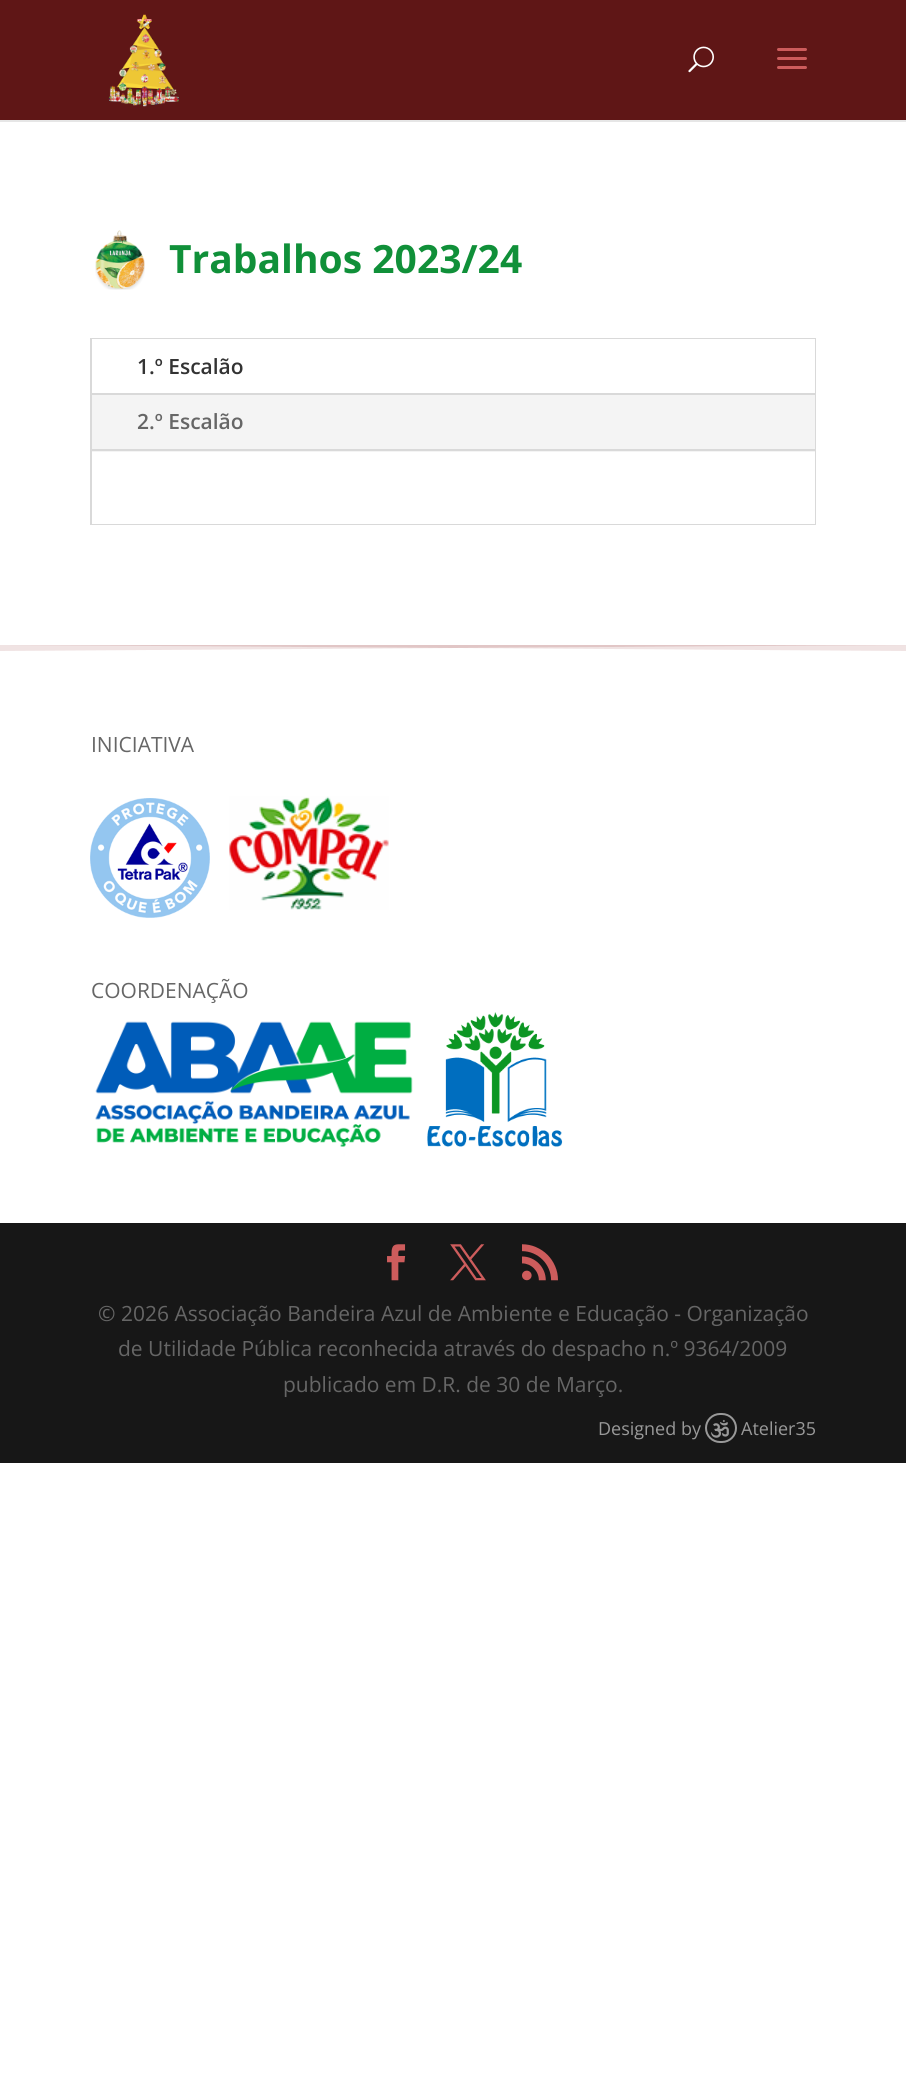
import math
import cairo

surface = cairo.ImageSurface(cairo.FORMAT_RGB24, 906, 2075)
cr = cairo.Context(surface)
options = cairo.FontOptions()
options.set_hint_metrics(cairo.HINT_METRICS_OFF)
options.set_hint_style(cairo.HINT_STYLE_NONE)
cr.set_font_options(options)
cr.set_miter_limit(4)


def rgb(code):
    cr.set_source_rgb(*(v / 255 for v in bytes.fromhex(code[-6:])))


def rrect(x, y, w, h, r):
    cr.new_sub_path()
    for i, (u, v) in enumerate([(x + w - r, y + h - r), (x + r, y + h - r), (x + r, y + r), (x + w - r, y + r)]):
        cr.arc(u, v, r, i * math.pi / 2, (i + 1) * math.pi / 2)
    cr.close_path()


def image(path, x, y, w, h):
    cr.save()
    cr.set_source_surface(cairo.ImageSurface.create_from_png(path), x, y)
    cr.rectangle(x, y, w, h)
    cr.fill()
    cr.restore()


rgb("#ffffff")
cr.paint()
rgb("#e6e6e6")
cr.rectangle(0, 120, 906, 2)
cr.fill()
rgb("#5f1616")
cr.rectangle(0, 0, 906, 120)
cr.fill()
image("img/1.png", 108, 14, 72, 93)
image("img/2.png", 688, 46, 26, 27)
image("img/3.png", 777, 48, 30, 21)
image("img/4.png", 95, 230, 50, 60)
cr.rectangle(91, 339, 724, 185)
rgb("#d9d9d9")
cr.stroke()
for x, y, w, h, color in [
    (92, 395, 723, 57, "#f4f4f4"),
    (92, 339, 723, 54, "#ffffff"),
    (92, 393, 723, 2, "#d9d9d9"),
    (92, 449, 723, 2, "#d9d9d9"),
    (92, 452, 723, 72, "#ffffff"),
]:
    rgb(color)
    cr.rectangle(x, y, w, h)
    cr.fill()
rgb("#f0e3e3")
cr.new_path()
cr.move_to(0, 645)
cr.line_to(453, 648)
cr.line_to(906, 645)
cr.line_to(906, 651)
cr.line_to(453, 648)
cr.line_to(0, 651)
cr.close_path()
cr.fill()
cr.set_source_rgba(0.533, 0.114, 0.114, 0.25)
cr.new_path()
cr.move_to(0, 645)
cr.line_to(906, 645)
cr.line_to(453, 648)
cr.close_path()
cr.fill()
image("img/5.png", 90, 798, 120, 120)
image("img/6.png", 229, 796, 160, 114)
image("img/7.png", 95, 1021, 318, 126)
image("img/8.png", 427, 1012, 136, 135)
rgb("#171717")
cr.rectangle(0, 1223, 906, 240)
cr.fill()
image("img/9.png", 387, 1244, 19, 37)
image("img/10.png", 450, 1244, 36, 37)
image("img/11.png", 522, 1244, 36, 37)
rrect(706, 1414, 30, 28, 14)
rgb("#999999")
cr.stroke()
image("img/12.png", 711, 1419, 18, 19)
cr.select_font_face("Open Sans", cairo.FONT_SLANT_NORMAL, cairo.FONT_WEIGHT_BOLD)
cr.set_font_size(39)
rgb("#109039")
cr.move_to(169, 273)
cr.show_text("Trabalhos 2023/24")
cr.select_font_face("Open Sans SemiBold")
cr.set_font_size(21)
rgb("#333333")
cr.move_to(137, 374)
cr.show_text("1.º Escalão")
rgb("#666666")
cr.move_to(137, 429)
cr.show_text("2.º Escalão")
cr.select_font_face("Open Sans")
for x, y, s in [
    (91, 752, "INICIATIVA"),
    (91, 998, "COORDENAÇÃO"),
    (98, 1321, "© 2026 Associação Bandeira Azul de Ambiente e Educação - Organização"),
    (118, 1356, "de Utilidade Pública reconhecida através do despacho n.º 9364/2009"),
    (283, 1392, "publicado em D.R. de 30 de Março."),
]:
    cr.move_to(x, y)
    cr.show_text(s)
cr.set_font_size(18)
rgb("#999999")
cr.move_to(598, 1435)
cr.show_text("Designed by")
cr.move_to(741, 1435)
cr.show_text("Atelier35")
surface.write_to_png("page.png")
